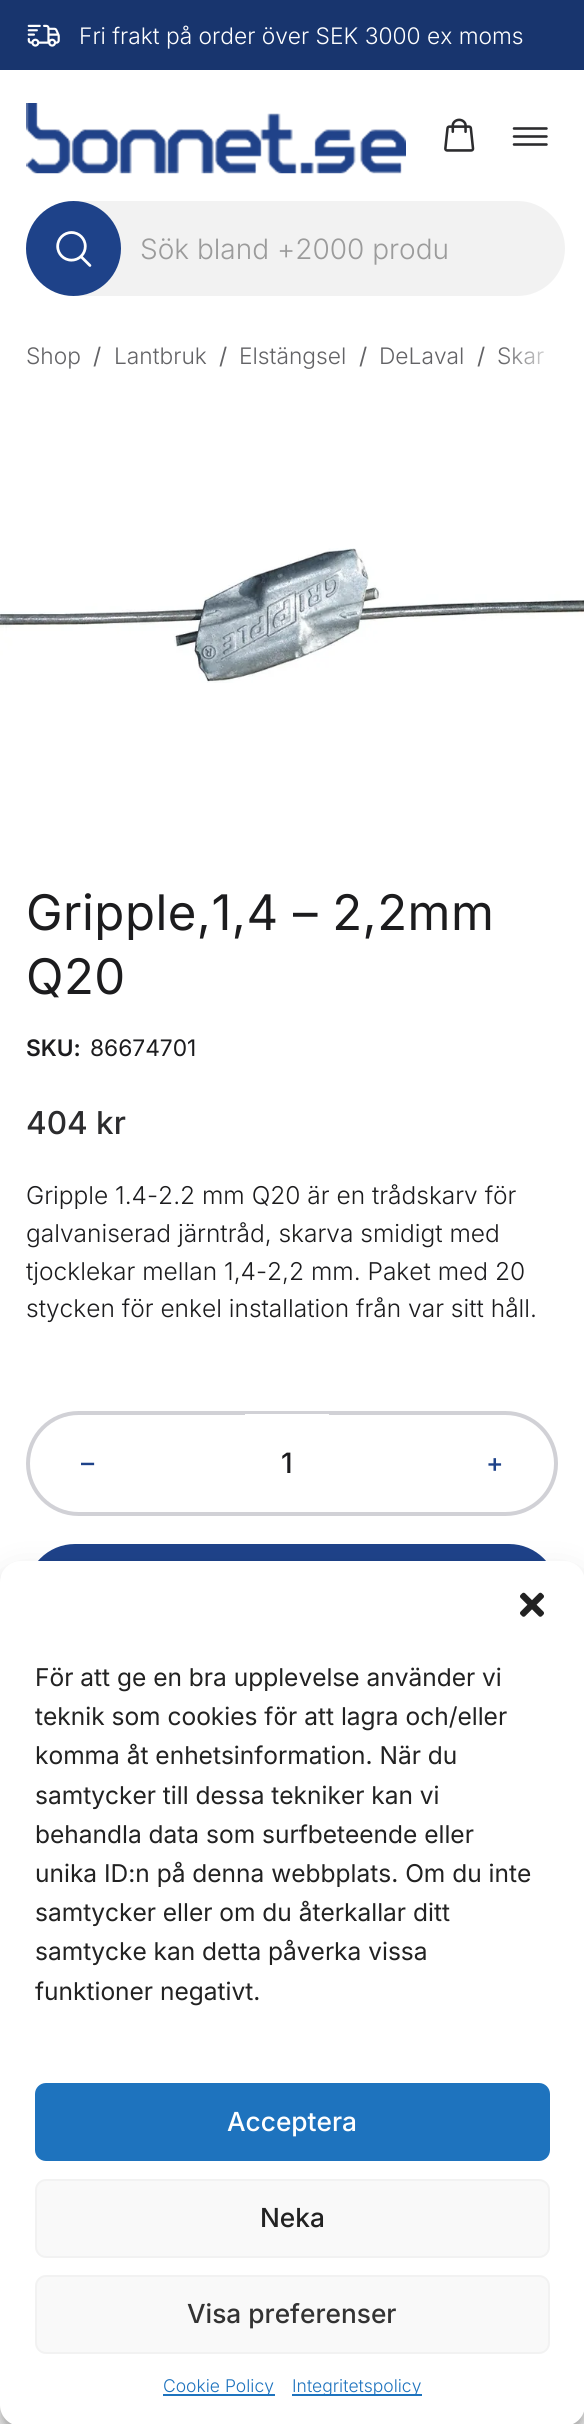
import math
import cairo

surface = cairo.ImageSurface(cairo.FORMAT_RGB24, 584, 2424)
cr = cairo.Context(surface)
options = cairo.FontOptions()
options.set_hint_metrics(cairo.HINT_METRICS_OFF)
options.set_hint_style(cairo.HINT_STYLE_NONE)
cr.set_font_options(options)
cr.set_miter_limit(4)


def rgb(code):
    cr.set_source_rgb(*(v / 255 for v in bytes.fromhex(code[-6:])))


def tracked(x, y, s, letter, word):
    cr.move_to(x, y)
    for ch in s:
        cr.show_text(ch)
        cr.rel_move_to(letter + word * (ch == ' '), 0)


def rrect(x, y, w, h, r):
    cr.new_sub_path()
    for i, (u, v) in enumerate([(x + w - r, y + h - r), (x + r, y + h - r), (x + r, y + r), (x + w - r, y + r)]):
        cr.arc(u, v, r, i * math.pi / 2, (i + 1) * math.pi / 2)
    cr.close_path()


def soft_shadow(x, y, w, h, r, blur, alpha):
    cr.push_group_with_content(cairo.CONTENT_ALPHA)
    cr.set_operator(cairo.OPERATOR_SOURCE)
    for i in range(15, -16, -2):
        e = blur * i / 6
        if min(w, h) + 2 * e > 0:
            cr.set_source_rgba(0, 0, 0, alpha * math.erfc((i - 1) / 8.5) / 2)
            rrect(x - e, y - e, w + 2 * e, h + 2 * e, max(0, min(r + e + blur * .6, min(w, h) / 2 + e)))
            cr.fill()
    cr.mask(cr.pop_group())


def image(path, x, y, w, h):
    cr.save()
    cr.set_source_surface(cairo.ImageSurface.create_from_png(path), x, y)
    cr.rectangle(x, y, w, h)
    cr.fill()
    cr.restore()


rgb("#ffffff")
cr.paint()
rgb("#18356e")
cr.rectangle(0, 0, 584, 70)
cr.fill()
image("img/1.png", 27, 24, 33, 23)
image("img/2.png", 26, 103, 380, 71)
image("img/3.png", 444, 118, 31, 34)
image("img/4.png", 512, 127, 36, 19)
rgb("#f2f2f2")
rrect(26, 201, 539, 95, 47.5)
cr.fill()
rgb("#1e4289")
cr.arc(73.5, 248.5, 47.5, 0, 2 * math.pi)
cr.fill()
image("img/5.png", 56, 231, 36, 36)
image("img/6.png", 0, 548, 584, 135)
rrect(28, 1413, 528, 101, 50.5)
rgb("#d1d1d6")
cr.set_line_width(4)
cr.stroke()
rgb("#ffffff")
cr.rectangle(245, 1414, 84, 1)
cr.fill()
rgb("#1e4289")
rrect(28, 1546, 528, 94, 47)
cr.fill_preserve()
cr.stroke()
rgb("#000000")
soft_shadow(0, 1572, 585, 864, 21, 5, 0.23)
soft_shadow(0, 1579, 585, 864, 21, 17.5, 0.19)
rgb("#ffffff")
rrect(0, 1561, 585, 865, 21)
cr.fill()
image("img/7.png", 520, 1592, 24, 25)
rgb("#1e73be")
rrect(36, 2084, 513, 76, 10)
cr.fill_preserve()
cr.set_line_width(2)
cr.stroke()
rgb("#f9f9f9")
rrect(36, 2180, 513, 77, 10)
cr.fill_preserve()
rgb("#f2f2f2")
cr.stroke()
rgb("#f9f9f9")
rrect(36, 2276, 513, 77, 10)
cr.fill_preserve()
rgb("#f2f2f2")
cr.stroke()
rgb("#1e73be")
cr.rectangle(163, 2394, 112, 2)
cr.fill()
cr.rectangle(292, 2394, 130, 2)
cr.fill()
cr.select_font_face("Inter Light")
cr.set_font_size(22.75)
rgb("#ffffff")
cr.move_to(79, 44)
cr.show_text("Fri frakt på order över SEK 3000 ex moms")
cr.set_font_size(28)
rgb("#9b9b9b")
cr.move_to(140, 259)
cr.show_text("Sök bland +2000 produ")
cr.set_font_size(22.75)
rgb("#636366")
cr.move_to(26, 364)
cr.show_text("Shop")
cr.select_font_face("Inter")
cr.move_to(93, 364)
cr.show_text("/")
cr.select_font_face("Inter Light")
cr.move_to(114, 364)
cr.show_text("Lantbruk")
cr.select_font_face("Inter")
cr.move_to(219, 364)
cr.show_text("/")
cr.select_font_face("Inter Light")
cr.move_to(239, 364)
cr.show_text("Elstängsel")
cr.select_font_face("Inter")
cr.move_to(359, 364)
cr.show_text("/")
cr.select_font_face("Inter Light")
cr.move_to(379, 364)
cr.show_text("DeLaval")
cr.select_font_face("Inter")
cr.move_to(477, 364)
cr.show_text("/")
cr.select_font_face("Inter Light")
cr.move_to(497, 364)
cr.show_text("Skar")
gradient = cairo.LinearGradient(501, 356, 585, 356)
gradient.add_color_stop_rgba(0, 1, 1, 1, 0)
gradient.add_color_stop_rgba(0.75, 1, 1, 1, 1)
gradient.add_color_stop_rgba(1, 1, 1, 1, 1)
cr.set_source(gradient)
cr.rectangle(502, 347, 42, 18)
cr.fill()
cr.select_font_face("Inter")
cr.set_font_size(49)
rgb("#1c1c1e")
tracked(26, 930, "Gripple,1,4 – 2,2mm", 0.5, 0)
tracked(26, 994, "Q20", 0.5, 0)
cr.select_font_face("Inter SemiBold")
cr.set_font_size(22.75)
cr.move_to(26, 1056)
cr.show_text("SKU:")
cr.select_font_face("Inter")
cr.move_to(90, 1056)
cr.show_text("86674701")
cr.select_font_face("Inter Medium")
cr.set_font_size(31.5)
rgb("#2c2c2e")
cr.move_to(26, 1134)
cr.show_text("404 kr")
cr.select_font_face("Inter Light")
cr.set_font_size(24.5)
rgb("#1c1c1e")
for x, y, s in [
    (26, 1204, "Gripple 1.4-2.2 mm Q20 är en trådskarv för"),
    (26, 1242, "galvaniserad järntråd, skarva smidigt med"),
    (26, 1280, "tjocklekar mellan 1,4-2,2 mm. Paket med 20"),
    (26, 1317, "stycken för enkel installation från var sitt håll."),
]:
    cr.move_to(x, y)
    cr.show_text(s)
cr.select_font_face("Inter Medium")
cr.set_font_size(26.25)
rgb("#1e4289")
cr.move_to(81, 1472)
cr.show_text("–")
cr.set_font_size(28)
rgb("#1c1c1e")
cr.move_to(281, 1473)
cr.show_text("1")
cr.set_font_size(26.25)
rgb("#1e4289")
cr.move_to(486, 1472)
cr.show_text("+")
cr.select_font_face("Inter")
cr.set_font_size(24.5)
rgb("#222222")
for x, y, s in [
    (35, 1686, "För att ge en bra upplevelse använder vi"),
    (35, 1725, "teknik som cookies för att lagra och/eller"),
    (35, 1764, "komma åt enhetsinformation. När du"),
    (35, 1804, "samtycker till dessa tekniker kan vi"),
    (35, 1843, "behandla data som surfbeteende eller"),
    (35, 1882, "unika ID:n på denna webbplats. Om du inte"),
    (35, 1921, "samtycker eller om du återkallar ditt"),
    (35, 1960, "samtycke kan detta påverka vissa"),
    (35, 2000, "funktioner negativt."),
]:
    cr.move_to(x, y)
    cr.show_text(s)
cr.select_font_face("Inter Medium")
cr.set_font_size(26.25)
rgb("#ffffff")
cr.move_to(227, 2131)
cr.show_text("Acceptera")
rgb("#222222")
cr.move_to(260, 2227)
cr.show_text("Neka")
rgb("#333333")
cr.move_to(187, 2323)
cr.show_text("Visa preferenser")
cr.select_font_face("Inter Light")
cr.set_font_size(17.5)
rgb("#1e73be")
cr.move_to(163, 2392)
cr.show_text("Cookie Policy")
cr.move_to(292, 2392)
cr.show_text("Integritetspolicy")
surface.write_to_png("page.png")
